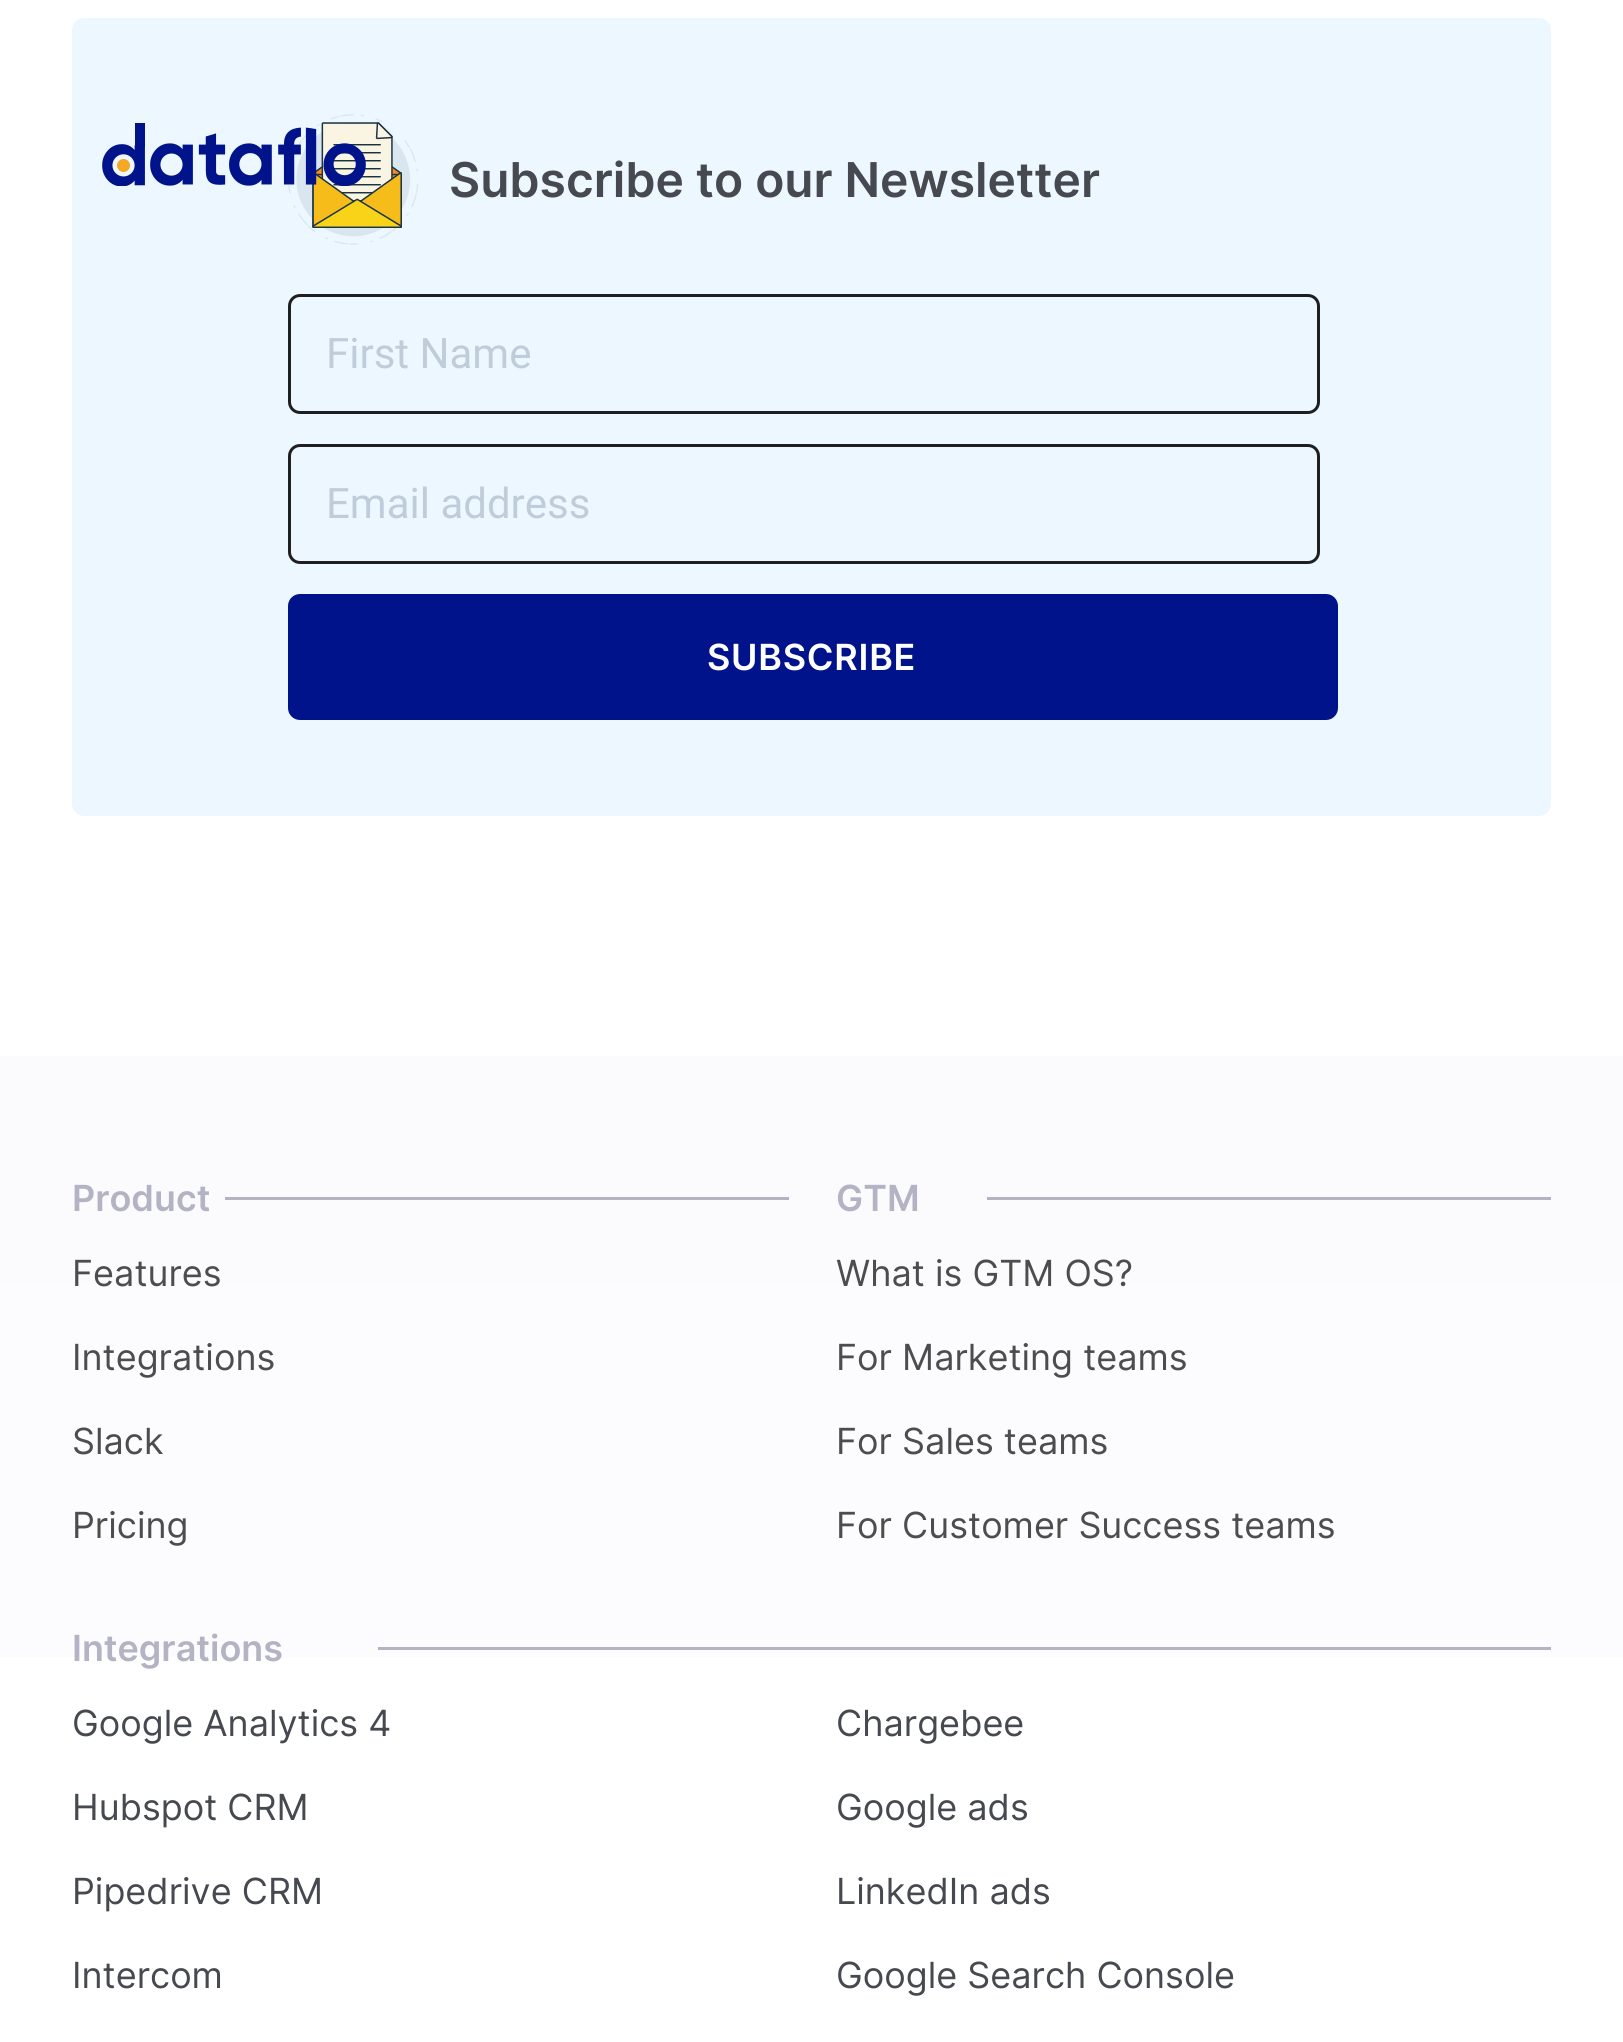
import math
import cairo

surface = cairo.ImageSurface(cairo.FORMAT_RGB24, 1623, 2042)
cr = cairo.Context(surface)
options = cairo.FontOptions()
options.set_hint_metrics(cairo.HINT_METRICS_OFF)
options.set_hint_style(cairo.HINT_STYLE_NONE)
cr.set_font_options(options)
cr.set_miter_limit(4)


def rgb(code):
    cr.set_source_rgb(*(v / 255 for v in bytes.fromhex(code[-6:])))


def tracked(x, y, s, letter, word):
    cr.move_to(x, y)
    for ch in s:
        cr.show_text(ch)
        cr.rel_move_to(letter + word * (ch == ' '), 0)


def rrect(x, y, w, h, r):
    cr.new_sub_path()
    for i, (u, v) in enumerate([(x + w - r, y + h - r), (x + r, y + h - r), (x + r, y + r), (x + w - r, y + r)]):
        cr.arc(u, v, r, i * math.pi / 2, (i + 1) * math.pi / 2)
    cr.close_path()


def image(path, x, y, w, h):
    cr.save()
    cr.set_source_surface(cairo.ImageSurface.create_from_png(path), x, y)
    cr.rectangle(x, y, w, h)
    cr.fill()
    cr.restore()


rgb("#ffffff")
cr.paint()
rgb("#edf7ff")
rrect(72, 18, 1479, 798, 12)
cr.fill()
image("img/2.png", 288, 114, 131, 131)
image("img/1.png", 102, 123, 264, 63)
rrect(289.5, 295.5, 1029, 117, 10.5)
rgb("#1f1f1f")
cr.set_line_width(3)
cr.stroke()
rrect(289.5, 445.5, 1029, 117, 10.5)
cr.stroke()
rgb("#00138b")
rrect(288, 594, 1050, 126, 12)
cr.fill()
gradient = cairo.LinearGradient(811, 1056, 812, 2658)
gradient.add_color_stop_rgba(0, 0.984, 0.984, 0.996, 1)
gradient.add_color_stop_rgba(1, 1, 1, 1, 1)
cr.set_source(gradient)
cr.rectangle(0, 1056, 1623, 601)
cr.fill()
for x, y, w, h, color in [
    (225, 1197, 564, 3, "#b3b3c4"),
    (987, 1197, 564, 3, "#b3b3c4"),
    (378, 1647, 1173, 3, "#b3b3c4"),
]:
    rgb(color)
    cr.rectangle(x, y, w, h)
    cr.fill()
cr.select_font_face("Inter SemiBold")
cr.set_font_size(48)
rgb("#46494f")
cr.move_to(449, 197)
cr.show_text("Subscribe to our Newsletter")
cr.select_font_face("Roboto")
cr.set_font_size(42)
rgb("#c0ccda")
cr.move_to(326, 368)
cr.show_text("First Name")
cr.move_to(326, 518)
cr.show_text("Email address")
cr.select_font_face("Inter SemiBold")
cr.set_font_size(36)
rgb("#ffffff")
tracked(707, 670, "SUBSCRIBE", 0.75, 0)
rgb("#b3b3c4")
cr.move_to(72, 1211)
cr.show_text("Product")
cr.select_font_face("Inter")
rgb("#4d4d4d")
for x, y, s in [
    (72, 1286, "Features"),
    (72, 1370, "Integrations"),
    (72, 1454, "Slack"),
    (72, 1538, "Pricing"),
]:
    cr.move_to(x, y)
    cr.show_text(s)
cr.select_font_face("Inter SemiBold")
rgb("#b3b3c4")
cr.move_to(836, 1211)
cr.show_text("GTM")
cr.select_font_face("Inter")
rgb("#4d4d4d")
for x, y, s in [
    (836, 1286, "What is GTM OS?"),
    (836, 1370, "For Marketing teams"),
    (836, 1454, "For Sales teams"),
    (836, 1538, "For Customer Success teams"),
]:
    cr.move_to(x, y)
    cr.show_text(s)
cr.select_font_face("Inter SemiBold")
rgb("#b3b3c4")
cr.move_to(72, 1661)
cr.show_text("Integrations")
cr.select_font_face("Inter")
rgb("#46494f")
for x, y, s in [
    (72, 1736, "Google Analytics 4"),
    (72, 1820, "Hubspot CRM"),
    (72, 1904, "Pipedrive CRM"),
    (72, 1988, "Intercom"),
    (836, 1736, "Chargebee"),
    (836, 1820, "Google ads"),
    (836, 1904, "LinkedIn ads"),
    (836, 1988, "Google Search Console"),
]:
    cr.move_to(x, y)
    cr.show_text(s)
surface.write_to_png("page.png")
